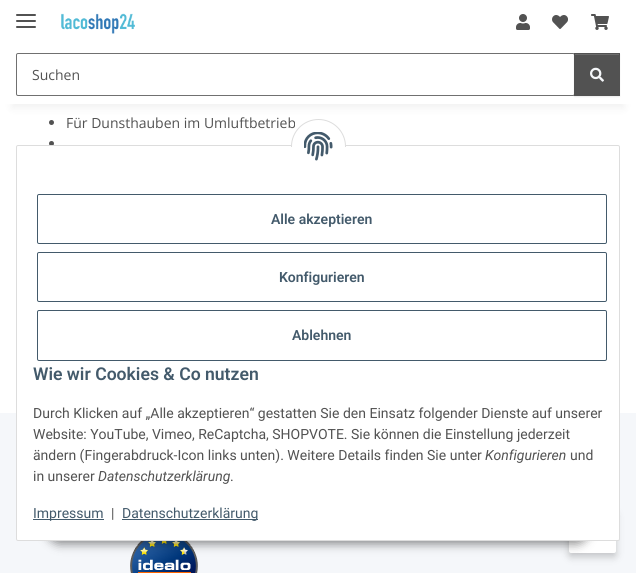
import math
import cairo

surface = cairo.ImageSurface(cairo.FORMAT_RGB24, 636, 573)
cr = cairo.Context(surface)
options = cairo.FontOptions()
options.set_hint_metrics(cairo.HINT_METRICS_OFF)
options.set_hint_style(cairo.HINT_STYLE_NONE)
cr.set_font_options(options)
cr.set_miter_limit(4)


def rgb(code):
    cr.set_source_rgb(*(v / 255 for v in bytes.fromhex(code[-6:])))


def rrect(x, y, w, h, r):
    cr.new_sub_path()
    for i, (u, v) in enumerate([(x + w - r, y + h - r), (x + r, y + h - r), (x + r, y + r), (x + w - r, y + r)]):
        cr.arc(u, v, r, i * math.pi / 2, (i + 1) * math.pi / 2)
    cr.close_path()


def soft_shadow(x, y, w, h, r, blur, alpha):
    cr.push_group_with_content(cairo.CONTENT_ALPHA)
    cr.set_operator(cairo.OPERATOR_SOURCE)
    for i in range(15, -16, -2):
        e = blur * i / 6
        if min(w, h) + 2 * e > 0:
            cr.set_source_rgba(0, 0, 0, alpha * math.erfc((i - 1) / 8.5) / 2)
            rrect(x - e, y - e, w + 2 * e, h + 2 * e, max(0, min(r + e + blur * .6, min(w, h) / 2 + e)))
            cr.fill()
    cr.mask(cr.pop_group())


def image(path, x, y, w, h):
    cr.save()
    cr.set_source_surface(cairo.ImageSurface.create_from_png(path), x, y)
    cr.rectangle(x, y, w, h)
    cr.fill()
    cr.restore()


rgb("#f5f7fa")
cr.paint()
rgb("#ffffff")
cr.rectangle(0, 104, 636, 309)
cr.fill()
rgb("#525252")
cr.arc(51.5, 122.5, 2.5, 0, 2 * math.pi)
cr.fill()
rgb("#000000")
soft_shadow(12, 28, 612, 80, 0, 4.5, 0.06)
rgb("#ffffff")
cr.rectangle(0, 0, 636, 104)
cr.fill()
rgb("#525252")
rrect(16, 20, 20, 2, 1)
cr.fill()
rrect(16, 14, 20, 2, 1)
cr.fill()
rrect(16, 26, 20, 2, 1)
cr.fill()
image("img/1.png", 61, 13, 74, 21)
image("img/2.png", 516, 14, 14, 16)
image("img/3.png", 552, 15, 16, 14)
image("img/4.png", 591, 14, 18, 16)
rrect(16.5, 53.5, 558, 42, 1.5)
rgb("#707070")
cr.set_line_width(1)
cr.stroke()
rgb("#000000")
soft_shadow(574, 54, 46, 43, 0, 0.5, 0.07)
rgb("#525252")
cr.rectangle(574, 53, 46, 43)
cr.fill()
rgb("#6c6c6c")
cr.rectangle(575, 54, 44, 1)
cr.fill()
image("img/5.png", 590, 67, 14, 15)
rgb("#525252")
cr.arc(51.5, 143.5, 2.5, 0, 2 * math.pi)
cr.fill()
image("img/7.png", 130, 541, 68, 32)
rgb("#000000")
soft_shadow(569, 513, 47, 44, 2, 4, 0.2)
rgb("#ffffff")
rrect(569, 509, 47, 44, 2)
cr.fill()
rgb("#000000")
soft_shadow(47, 512, 542, 32, 16, 5, 0.45)
rgb("#ffffff")
rrect(16.5, 145.5, 603, 395, 1.5)
cr.fill_preserve()
rgb("#dddddd")
cr.stroke()
rrect(37.5, 194.5, 569, 49, 1.5)
rgb("#435a6b")
cr.stroke()
rrect(37.5, 252.5, 569, 49, 1.5)
cr.stroke()
rrect(37.5, 310.5, 569, 50, 1.5)
cr.stroke()
cr.rectangle(33, 519, 71, 1)
cr.fill()
cr.rectangle(122, 519, 136, 1)
cr.fill()
cr.select_font_face("Open Sans")
cr.set_font_size(14)
rgb("#525252")
cr.move_to(32, 80)
cr.show_text("Suchen")
cr.move_to(66, 128)
cr.show_text("Für Dunsthauben im Umluftbetrieb")
rgb("#ffffff")
cr.new_path()
cr.arc(318.5, 146.5, 27, 0, 2 * math.pi)
cr.fill_preserve()
rgb("#dddddd")
cr.stroke()
rgb("#ffffff")
cr.rectangle(291, 147, 55, 27)
cr.fill()
image("img/6.png", 304, 132, 29, 29)
cr.select_font_face("Roboto SemiBold")
rgb("#435a6b")
for x, y, s in [
    (271, 224, "Alle akzeptieren"),
    (279, 282, "Konfigurieren"),
    (292, 340, "Ablehnen"),
]:
    cr.move_to(x, y)
    cr.show_text(s)
cr.set_font_size(17.6)
cr.move_to(33, 380)
cr.show_text("Wie wir Cookies & Co nutzen")
cr.select_font_face("Roboto")
cr.set_font_size(14)
rgb("#525252")
for x, y, s in [
    (33, 418, "Durch Klicken auf „Alle akzeptieren“ gestatten Sie den Einsatz folgender Dienste auf unserer"),
    (33, 439, "Website: YouTube, Vimeo, ReCaptcha, SHOPVOTE. Sie können die Einstellung jederzeit"),
    (33, 460, "ändern (Fingerabdruck-Icon links unten). Weitere Details finden Sie unter"),
]:
    cr.move_to(x, y)
    cr.show_text(s)
cr.select_font_face("Roboto", cairo.FONT_SLANT_ITALIC)
cr.move_to(485, 460)
cr.show_text("Konfigurieren")
cr.select_font_face("Roboto")
cr.move_to(570, 460)
cr.show_text("und")
cr.move_to(33, 481)
cr.show_text("in unserer")
cr.select_font_face("Roboto", cairo.FONT_SLANT_ITALIC)
cr.move_to(98, 481)
cr.show_text("Datenschutzerklärung")
cr.select_font_face("Roboto")
cr.move_to(230, 481)
cr.show_text(".")
rgb("#435a6b")
cr.move_to(33, 518)
cr.show_text("Impressum")
rgb("#525252")
cr.move_to(111, 518)
cr.show_text("|")
rgb("#435a6b")
cr.move_to(122, 518)
cr.show_text("Datenschutzerklärung")
surface.write_to_png("page.png")
